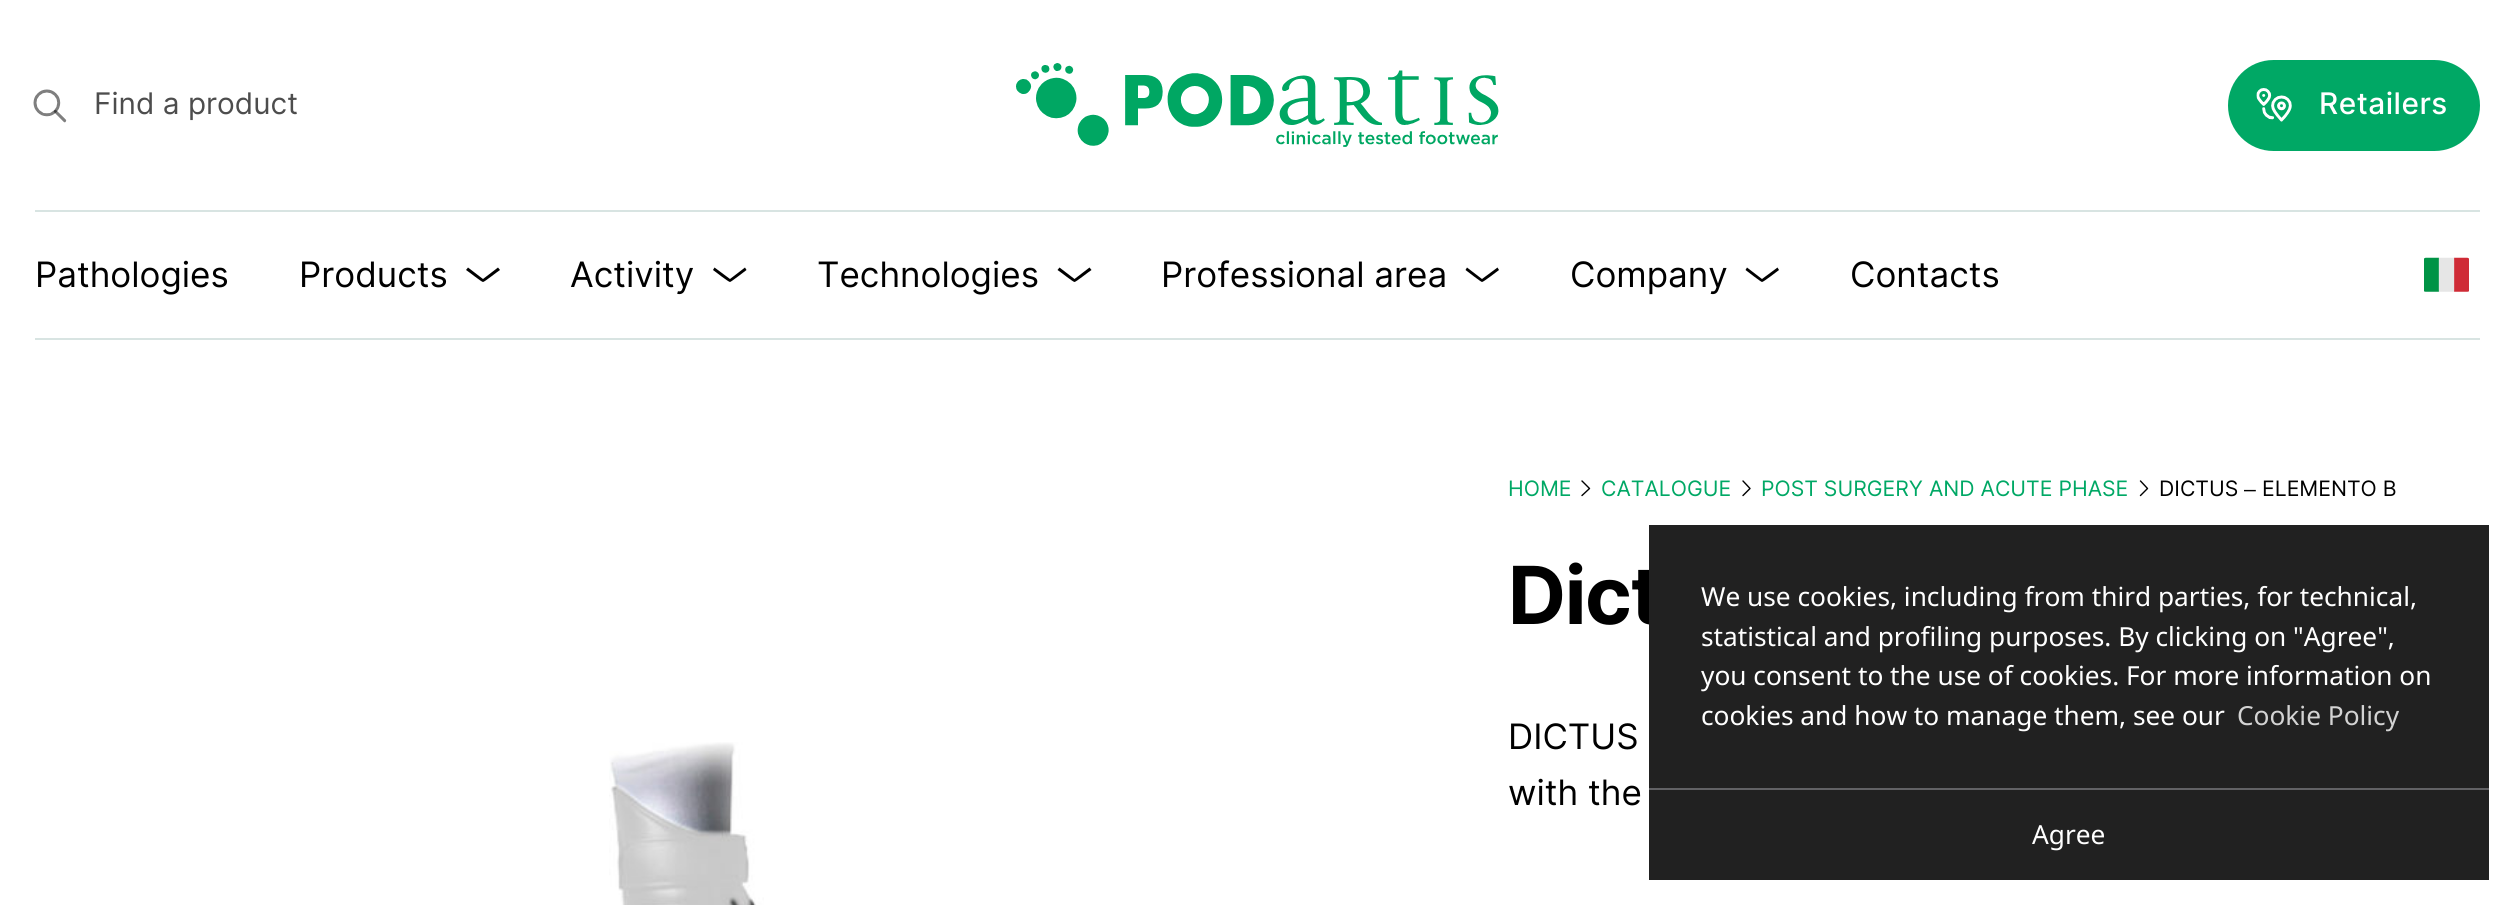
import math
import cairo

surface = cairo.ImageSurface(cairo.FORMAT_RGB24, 2514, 905)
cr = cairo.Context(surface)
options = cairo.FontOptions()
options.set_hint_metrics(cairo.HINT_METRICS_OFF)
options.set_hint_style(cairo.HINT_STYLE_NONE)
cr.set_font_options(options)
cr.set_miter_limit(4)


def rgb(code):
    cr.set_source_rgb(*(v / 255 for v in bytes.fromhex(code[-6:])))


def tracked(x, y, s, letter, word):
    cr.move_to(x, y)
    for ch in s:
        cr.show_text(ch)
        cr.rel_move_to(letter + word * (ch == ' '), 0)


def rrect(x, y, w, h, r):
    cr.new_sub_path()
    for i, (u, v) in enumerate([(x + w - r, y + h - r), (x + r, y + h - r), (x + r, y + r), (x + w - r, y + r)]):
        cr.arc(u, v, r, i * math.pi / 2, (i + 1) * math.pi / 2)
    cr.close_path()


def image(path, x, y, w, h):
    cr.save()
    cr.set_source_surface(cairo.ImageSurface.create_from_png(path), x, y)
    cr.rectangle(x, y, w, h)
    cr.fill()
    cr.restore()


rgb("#ffffff")
cr.paint()
image("img/1.png", 33, 89, 34, 34)
image("img/2.png", 1016, 63, 483, 84)
rgb("#00a865")
rrect(2229, 61, 250, 89, 44.5)
cr.fill_preserve()
cr.stroke()
image("img/3.png", 2256, 88, 36, 34)
rgb("#d8e4e2")
cr.rectangle(35, 210, 2445, 2)
cr.fill()
cr.rectangle(35, 338, 2445, 2)
cr.fill()
rgb("#000000")
cr.new_path()
cr.move_to(483, 282)
cr.curve_to(481.5, 282, 468.5, 271.5, 466, 270)
cr.line_to(468, 267.5)
cr.line_to(483, 279)
cr.line_to(498, 267.5)
cr.line_to(500, 270)
cr.curve_to(497.5, 271.5, 484.5, 282, 483, 282)
cr.close_path()
cr.fill()
cr.new_path()
cr.move_to(730, 282)
cr.curve_to(728.5, 282, 715, 271.5, 713, 270)
cr.line_to(714.5, 267.5)
cr.line_to(730, 279)
cr.line_to(745, 267.5)
cr.line_to(746.5, 270)
cr.curve_to(744.5, 271.5, 731, 282, 730, 282)
cr.close_path()
cr.fill()
cr.new_path()
cr.move_to(1074.5, 282)
cr.curve_to(1073, 282, 1060, 271.5, 1057.5, 270)
cr.line_to(1059.5, 267.5)
cr.line_to(1074.5, 279)
cr.line_to(1089.5, 267.5)
cr.line_to(1091.5, 270)
cr.curve_to(1089, 271.5, 1076, 282, 1074.5, 282)
cr.close_path()
cr.fill()
cr.new_path()
cr.move_to(1482, 282)
cr.curve_to(1481, 282, 1467.5, 271.5, 1465.5, 270)
cr.line_to(1467, 267.5)
cr.line_to(1482, 279)
cr.line_to(1497.5, 267.5)
cr.line_to(1499, 270)
cr.curve_to(1497, 271.5, 1483.5, 282, 1482, 282)
cr.close_path()
cr.fill()
cr.new_path()
cr.move_to(1762, 282)
cr.curve_to(1761, 282, 1747.5, 271.5, 1745.5, 270)
cr.line_to(1747, 267.5)
cr.line_to(1762, 279)
cr.line_to(1777.5, 267.5)
cr.line_to(1779, 270)
cr.curve_to(1777, 271.5, 1763.5, 282, 1762, 282)
cr.close_path()
cr.fill()
image("img/4.png", 2424, 257, 45, 35)
cr.new_path()
cr.move_to(1582, 481)
cr.line_to(1589.5, 488.5)
cr.line_to(1582, 495.5)
cr.set_line_width(1.4)
cr.set_line_cap(cairo.LINE_CAP_ROUND)
cr.set_line_join(cairo.LINE_JOIN_ROUND)
cr.stroke()
cr.new_path()
cr.move_to(1743, 481)
cr.line_to(1750, 488.5)
cr.line_to(1743, 495.5)
cr.stroke()
cr.new_path()
cr.move_to(2140.5, 481)
cr.line_to(2147.5, 488.5)
cr.line_to(2140.5, 495.5)
cr.stroke()
image("img/5.png", 609, 742, 155, 163)
cr.select_font_face("Inter")
cr.set_font_size(29.75)
rgb("#4d4d4d")
cr.move_to(94, 114)
cr.show_text("Find a product")
cr.select_font_face("Inter Medium")
rgb("#ffffff")
tracked(2319, 114, "Retailers", 0.5, 0)
cr.select_font_face("Inter")
cr.set_font_size(35)
rgb("#000000")
for x, y, s in [
    (35, 287, "Pathologies"),
    (299, 287, "Products"),
    (570, 287, "Activity"),
    (817, 287, "Technologies"),
    (1161, 287, "Professional area"),
    (1570, 287, "Company"),
    (1850, 287, "Contacts"),
]:
    cr.move_to(x, y)
    cr.show_text(s)
cr.set_font_size(21.25)
rgb("#00a865")
for x, y, s in [
    (1508, 496, "HOME"),
    (1601, 496, "CATALOGUE"),
    (1761, 496, "POST SURGERY AND ACUTE PHASE"),
]:
    cr.move_to(x, y)
    cr.show_text(s)
rgb("#000000")
cr.move_to(2159, 496)
cr.show_text("DICTUS")
cr.select_font_face("Liberation Sans")
cr.move_to(2244, 496)
cr.show_text("–")
cr.select_font_face("Inter")
cr.move_to(2262, 496)
cr.show_text("ELEMENTO B")
cr.select_font_face("Inter", cairo.FONT_SLANT_NORMAL, cairo.FONT_WEIGHT_BOLD)
cr.set_font_size(80)
tracked(1508, 624, "Dict", -1.5, 0)
cr.select_font_face("Inter")
cr.set_font_size(35)
cr.move_to(1508, 749)
cr.show_text("DICTUS")
cr.move_to(1508, 805)
cr.show_text("with the")
rgb("#212121")
cr.rectangle(1649, 525, 840, 355)
cr.fill()
cr.select_font_face("Noto Sans")
cr.set_font_size(26.25)
rgb("#ffffff")
for x, y, s in [
    (1701, 606, "We use cookies, including from third parties, for technical,"),
    (1701, 646, "statistical and profiling purposes. By clicking on \"Agree\","),
    (1701, 685, "you consent to the use of cookies. For more information on"),
    (1701, 725, "cookies and how to manage them, see our"),
]:
    cr.move_to(x, y)
    cr.show_text(s)
rgb("#d3d3d3")
cr.move_to(2237, 725)
cr.show_text("Cookie Policy")
rgb("#626265")
cr.rectangle(1649, 788, 840, 2)
cr.fill()
rgb("#ffffff")
cr.move_to(2032, 844)
cr.show_text("Agree")
surface.write_to_png("page.png")
